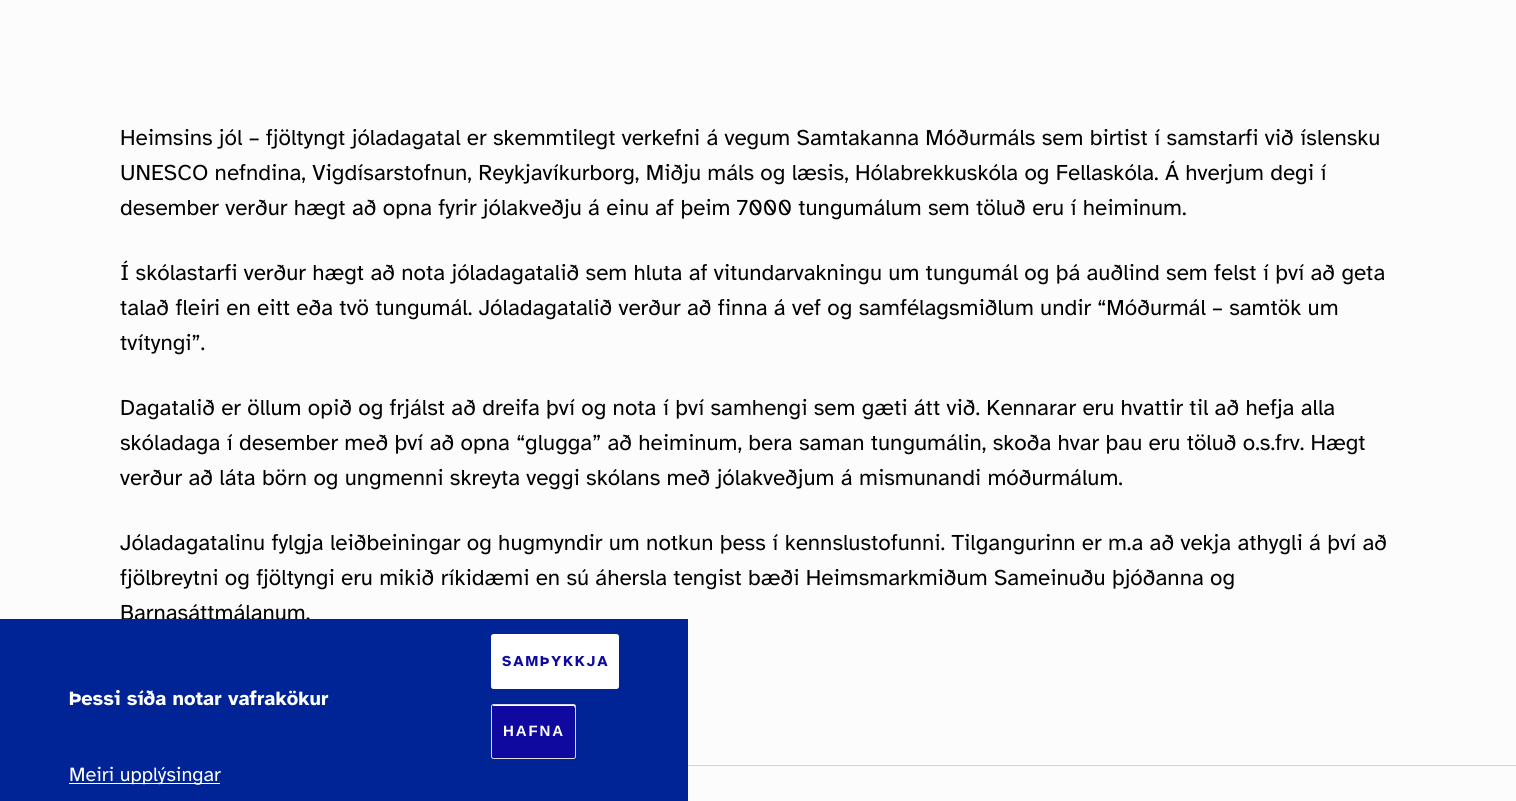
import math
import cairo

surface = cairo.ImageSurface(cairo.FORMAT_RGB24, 1516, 801)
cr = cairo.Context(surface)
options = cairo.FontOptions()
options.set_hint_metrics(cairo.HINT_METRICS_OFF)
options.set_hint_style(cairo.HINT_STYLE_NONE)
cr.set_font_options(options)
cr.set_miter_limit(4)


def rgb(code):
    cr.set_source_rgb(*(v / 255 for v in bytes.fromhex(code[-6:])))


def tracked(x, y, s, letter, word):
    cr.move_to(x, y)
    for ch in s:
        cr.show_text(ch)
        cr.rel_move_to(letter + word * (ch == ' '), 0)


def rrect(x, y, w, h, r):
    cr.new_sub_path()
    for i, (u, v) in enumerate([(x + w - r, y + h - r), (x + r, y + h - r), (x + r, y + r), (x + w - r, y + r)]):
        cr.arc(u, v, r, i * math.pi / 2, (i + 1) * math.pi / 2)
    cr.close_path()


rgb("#fcfcfc")
cr.paint()
rgb("#d3d3d3")
cr.rectangle(688, 765, 828, 1)
cr.fill()
cr.select_font_face("Atkinson Hyperlegible")
cr.set_font_size(22.5)
rgb("#000000")
for x, y, s in [
    (120, 145, "Heimsins jól – fjöltyngt jóladagatal er skemmtilegt verkefni á vegum Samtakanna Móðurmáls sem birtist í samstarfi við íslensku"),
    (120, 180, "UNESCO nefndina, Vigdísarstofnun, Reykjavíkurborg, Miðju máls og læsis, Hólabrekkuskóla og Fellaskóla. Á hverjum degi í"),
    (120, 215, "desember verður hægt að opna fyrir jólakveðju á einu af þeim 7000 tungumálum sem töluð eru í heiminum."),
    (120, 280, "Í skólastarfi verður hægt að nota jóladagatalið sem hluta af vitundarvakningu um tungumál og þá auðlind sem felst í því að geta"),
    (120, 315, "talað fleiri en eitt eða tvö tungumál. Jóladagatalið verður að finna á vef og samfélagsmiðlum undir “Móðurmál – samtök um"),
    (120, 350, "tvítyngi”."),
    (120, 415, "Dagatalið er öllum opið og frjálst að dreifa því og nota í því samhengi sem gæti átt við. Kennarar eru hvattir til að hefja alla"),
    (120, 450, "skóladaga í desember með því að opna “glugga” að heiminum, bera saman tungumálin, skoða hvar þau eru töluð o.s.frv. Hægt"),
    (120, 485, "verður að láta börn og ungmenni skreyta veggi skólans með jólakveðjum á mismunandi móðurmálum."),
    (120, 550, "Jóladagatalinu fylgja leiðbeiningar og hugmyndir um notkun þess í kennslustofunni. Tilgangurinn er m.a að vekja athygli á því að"),
    (120, 585, "fjölbreytni og fjöltyngi eru mikið ríkidæmi en sú áhersla tengist bæði Heimsmarkmiðum Sameinuðu þjóðanna og"),
    (120, 620, "Barnasáttmálanum."),
]:
    cr.move_to(x, y)
    cr.show_text(s)
rgb("#002496")
cr.rectangle(0, 619, 688, 182)
cr.fill()
cr.select_font_face("Atkinson Hyperlegible", cairo.FONT_SLANT_NORMAL, cairo.FONT_WEIGHT_BOLD)
cr.set_font_size(20)
rgb("#ffffff")
cr.move_to(69, 705)
cr.show_text("Þessi síða notar vafrakökur")
cr.rectangle(69, 783, 151, 1)
cr.fill()
cr.select_font_face("Atkinson Hyperlegible")
cr.move_to(69, 781)
cr.show_text("Meiri upplýsingar")
rrect(491, 634, 128, 55, 2.5)
cr.fill()
cr.select_font_face("Atkinson Hyperlegible", cairo.FONT_SLANT_NORMAL, cairo.FONT_WEIGHT_BOLD)
cr.set_font_size(15)
rgb("#10099f")
tracked(502, 666, "SAMÞYKKJA", 1.9, 0)
rrect(491, 704, 85, 55, 2.5)
cr.fill()
rgb("#ffffff")
cr.new_path()
cr.move_to(494, 706)
cr.line_to(574, 706)
cr.line_to(575, 708)
cr.line_to(575, 706)
cr.curve_to(575, 705, 575, 705, 574, 705)
cr.line_to(494, 705)
cr.curve_to(493, 705, 493, 705, 493, 706)
cr.close_path()
cr.fill()
rrect(491.5, 704.5, 84, 54, 2)
rgb("#dcdcdc")
cr.set_line_width(1)
cr.stroke()
cr.select_font_face("Liberation Sans", cairo.FONT_SLANT_NORMAL, cairo.FONT_WEIGHT_BOLD)
rgb("#ffffff")
tracked(503, 736, "HAFNA", 1.9, 0)
surface.write_to_png("page.png")
